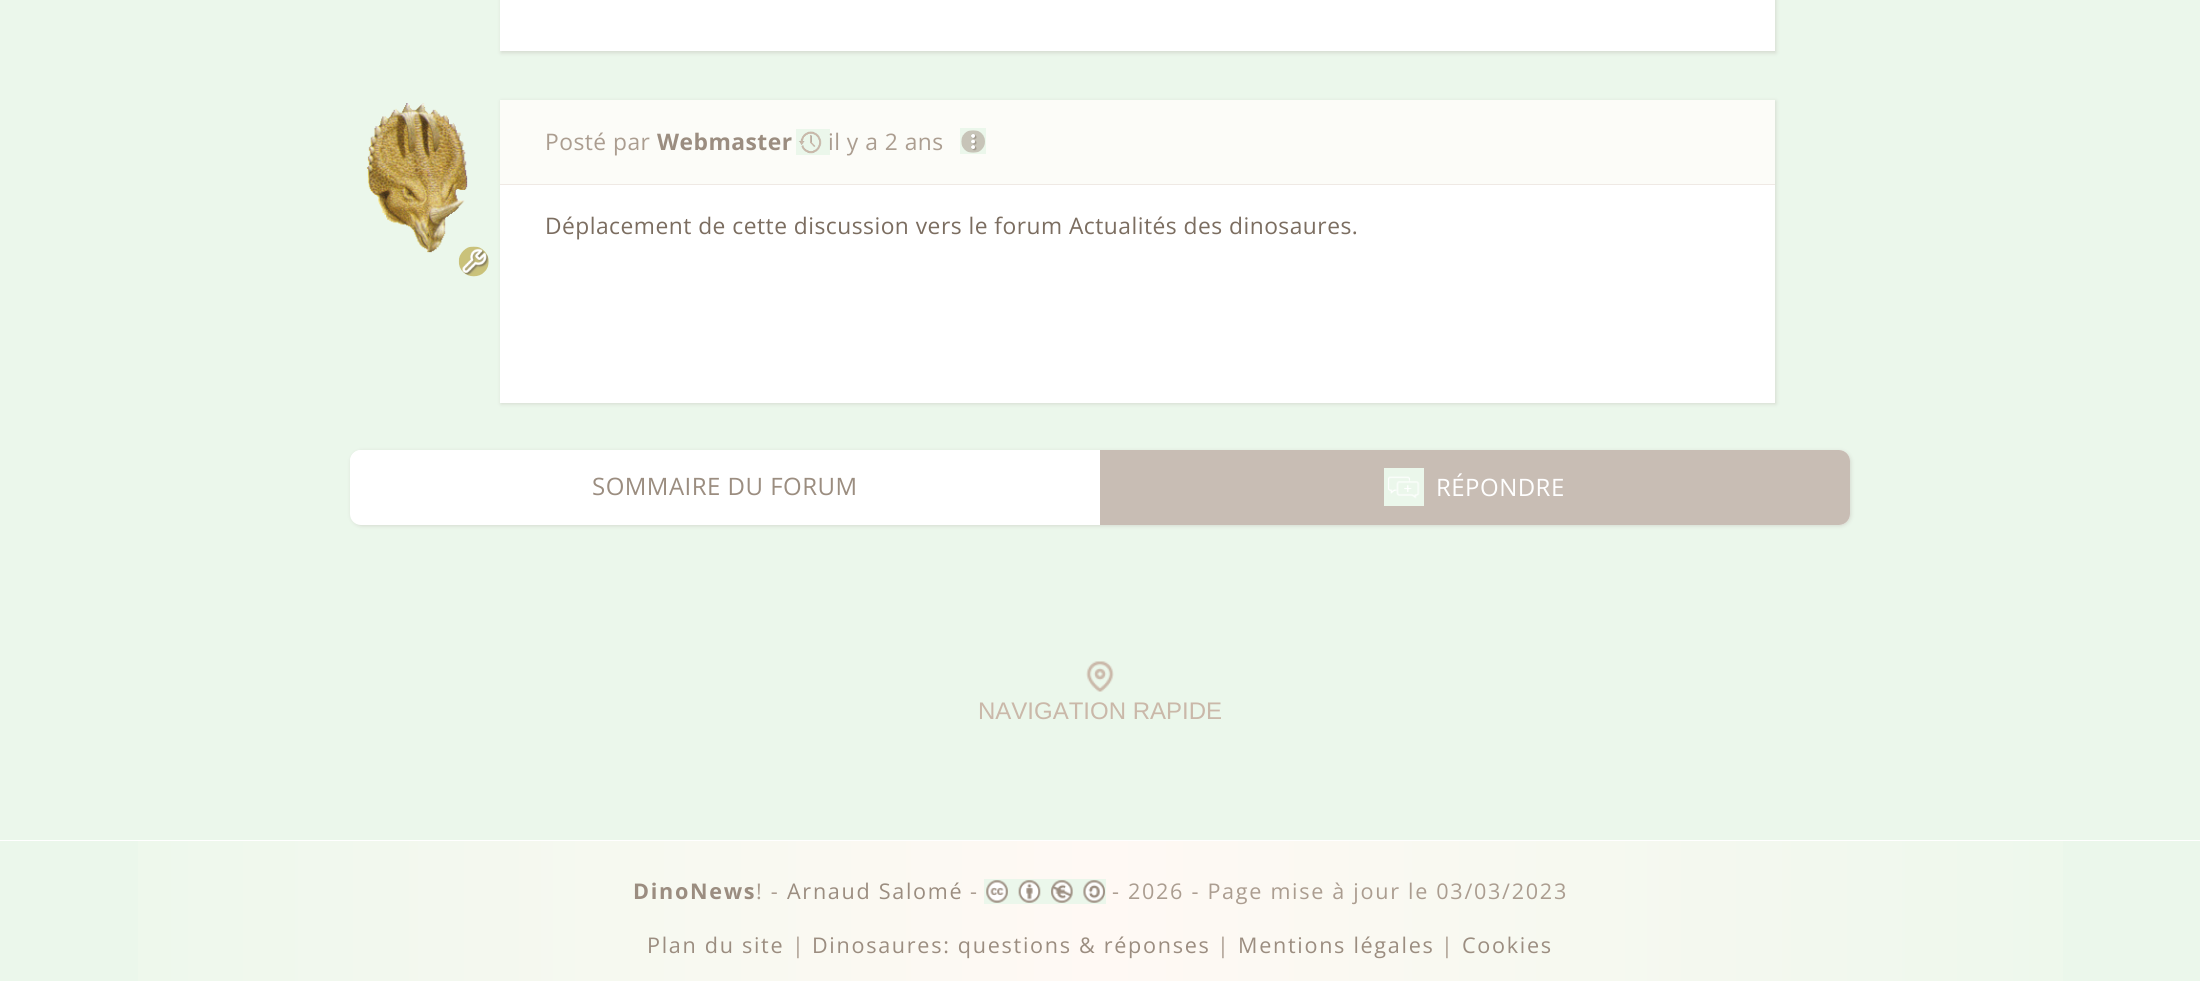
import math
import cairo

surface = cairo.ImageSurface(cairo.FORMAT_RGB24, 2200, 981)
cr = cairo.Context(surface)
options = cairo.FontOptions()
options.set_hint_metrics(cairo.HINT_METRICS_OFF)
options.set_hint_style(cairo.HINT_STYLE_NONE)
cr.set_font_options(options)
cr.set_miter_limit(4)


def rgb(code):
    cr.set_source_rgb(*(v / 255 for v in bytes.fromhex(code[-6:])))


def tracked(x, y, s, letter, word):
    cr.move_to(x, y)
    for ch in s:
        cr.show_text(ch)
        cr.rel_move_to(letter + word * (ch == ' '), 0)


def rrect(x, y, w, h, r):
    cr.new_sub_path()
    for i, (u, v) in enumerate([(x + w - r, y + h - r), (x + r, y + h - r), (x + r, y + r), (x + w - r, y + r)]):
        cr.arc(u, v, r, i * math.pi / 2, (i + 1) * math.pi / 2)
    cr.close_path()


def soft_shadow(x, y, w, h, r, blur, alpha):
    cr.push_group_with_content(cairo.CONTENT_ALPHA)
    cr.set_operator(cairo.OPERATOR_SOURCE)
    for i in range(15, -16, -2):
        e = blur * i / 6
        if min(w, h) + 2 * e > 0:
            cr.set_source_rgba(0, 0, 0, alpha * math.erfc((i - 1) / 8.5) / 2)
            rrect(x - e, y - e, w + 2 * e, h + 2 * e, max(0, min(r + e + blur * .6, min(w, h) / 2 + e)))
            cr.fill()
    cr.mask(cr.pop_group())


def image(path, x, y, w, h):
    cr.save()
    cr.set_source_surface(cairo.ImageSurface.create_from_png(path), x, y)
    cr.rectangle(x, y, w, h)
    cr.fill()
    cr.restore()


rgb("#ebf7eb")
cr.paint()
rgb("#a09790")
soft_shadow(501, -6, 1275, 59, 0, 2, 0.3)
rgb("#ffffff")
cr.rectangle(500, 0, 1275, 51)
cr.fill()
image("img/1.png", 366, 103, 102, 150)
image("img/2.png", 456, 244, 35, 35)
rgb("#a09790")
soft_shadow(501, 101, 1275, 303, 0, 2, 0.3)
for x, y, w, h, color in [
    (500, 185, 1275, 218, "#ffffff"),
    (500, 100, 1275, 84, "#fcfcf8"),
    (500, 184, 1275, 1, "#efe9e4"),
]:
    rgb(color)
    cr.rectangle(x, y, w, h)
    cr.fill()
image("img/3.png", 796, 129, 34, 26)
image("img/4.png", 960, 128, 26, 26)
rgb("#a09790")
soft_shadow(351, 451, 1500, 75, 11, 2, 0.3)
rgb("#ffffff")
rrect(350, 450, 1500, 75, 11)
cr.fill()
cr.new_path()
cr.move_to(361, 450)
cr.line_to(1100, 450)
cr.line_to(1100, 505)
cr.line_to(350, 505)
cr.line_to(350, 461)
cr.curve_to(350, 455, 355, 450, 361, 450)
cr.close_path()
cr.fill()
rgb("#c8bdb4")
cr.new_path()
cr.move_to(1100, 450)
cr.line_to(1839, 450)
cr.curve_to(1845, 450, 1850, 455, 1850, 461)
cr.line_to(1850, 514)
cr.curve_to(1850, 520, 1845, 525, 1839, 525)
cr.line_to(1100, 525)
cr.close_path()
cr.fill()
image("img/5.png", 1384, 468, 40, 38)
image("img/6.png", 1086, 661, 28, 31)
gradient = cairo.LinearGradient(0, 918, 2200, 918)
gradient.add_color_stop_rgba(0, 0.922, 0.973, 0.922, 1)
gradient.add_color_stop_rgba(0.5, 1, 0.976, 0.957, 1)
gradient.add_color_stop_rgba(1, 0.922, 0.973, 0.922, 1)
cr.set_source(gradient)
cr.rectangle(138, 841, 1925, 140)
cr.fill()
rgb("#ffffff")
cr.rectangle(0, 840, 2200, 1)
cr.fill()
image("img/7.png", 984, 879, 122, 25)
cr.select_font_face("Open Sans")
cr.set_font_size(22.8)
rgb("#ab9d90")
tracked(545, 150, "Posté par", 0.48, 0)
cr.select_font_face("Open Sans", cairo.FONT_SLANT_NORMAL, cairo.FONT_WEIGHT_BOLD)
rgb("#9b8d80")
tracked(657, 150, "Webmaster", 0.48, 0)
cr.select_font_face("Open Sans")
rgb("#ab9d90")
tracked(828, 150, "il y a 2 ans", 0.48, 0)
rgb("#7b6d60")
tracked(545, 234, "Déplacement de cette discussion vers le forum Actualités des dinosaures.", 0.48, 0)
cr.set_font_size(24)
rgb("#9b8d80")
tracked(592, 495, "SOMMAIRE DU FORUM", 0.48, 0)
rgb("#ffffff")
tracked(1436, 496, "RÉPONDRE", 0.48, 0)
cr.select_font_face("Liberation Sans")
rgb("#cab8a9")
cr.move_to(978, 719)
cr.show_text("NAVIGATION RAPIDE")
cr.select_font_face("Open Sans", cairo.FONT_SLANT_NORMAL, cairo.FONT_WEIGHT_BOLD)
cr.set_font_size(21.6)
rgb("#9b8d80")
tracked(633, 899, "DinoNews", 1.7, 0)
cr.select_font_face("Open Sans")
rgb("#ab9d90")
tracked(756, 899, "! -", 1.7, 0)
rgb("#9b8d80")
tracked(787, 899, "Arnaud Salomé", 1.7, 0)
rgb("#ab9d90")
tracked(970, 899, "-", 1.7, 0)
tracked(1112, 899, "- 2026 - Page mise à jour le 03/03/2023", 1.7, 0)
rgb("#9b8d80")
tracked(647, 953, "Plan du site", 1.7, 0)
rgb("#ab9d90")
tracked(792, 953, "|", 1.7, 0)
rgb("#9b8d80")
tracked(812, 953, "Dinosaures: questions & réponses", 1.7, 0)
rgb("#ab9d90")
tracked(1217, 953, "|", 1.7, 0)
rgb("#9b8d80")
tracked(1238, 953, "Mentions légales", 1.7, 0)
rgb("#ab9d90")
tracked(1441, 953, "|", 1.7, 0)
rgb("#9b8d80")
tracked(1462, 953, "Cookies", 1.7, 0)
surface.write_to_png("page.png")
